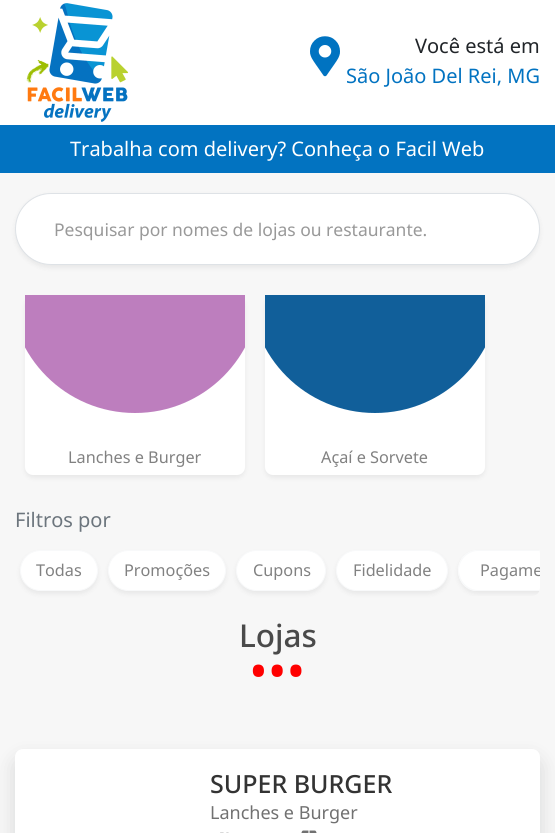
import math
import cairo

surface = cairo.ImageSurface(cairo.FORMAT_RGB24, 555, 833)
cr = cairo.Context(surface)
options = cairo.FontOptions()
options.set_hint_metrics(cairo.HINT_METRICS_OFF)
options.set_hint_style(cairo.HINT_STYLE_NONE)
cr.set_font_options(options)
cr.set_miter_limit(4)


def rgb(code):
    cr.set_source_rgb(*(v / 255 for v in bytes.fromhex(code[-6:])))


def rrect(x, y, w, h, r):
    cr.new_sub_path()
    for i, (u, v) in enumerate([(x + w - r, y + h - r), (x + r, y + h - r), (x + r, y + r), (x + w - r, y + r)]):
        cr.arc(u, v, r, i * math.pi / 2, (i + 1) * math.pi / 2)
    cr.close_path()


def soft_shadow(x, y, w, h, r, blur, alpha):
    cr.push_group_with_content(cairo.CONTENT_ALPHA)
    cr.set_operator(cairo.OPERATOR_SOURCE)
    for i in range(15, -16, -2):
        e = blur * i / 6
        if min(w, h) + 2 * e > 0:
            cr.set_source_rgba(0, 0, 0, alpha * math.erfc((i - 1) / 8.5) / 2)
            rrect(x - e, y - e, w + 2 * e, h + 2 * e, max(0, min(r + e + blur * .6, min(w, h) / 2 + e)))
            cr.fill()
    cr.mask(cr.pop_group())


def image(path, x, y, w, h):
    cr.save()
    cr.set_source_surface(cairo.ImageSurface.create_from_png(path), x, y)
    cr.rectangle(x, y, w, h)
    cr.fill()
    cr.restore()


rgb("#f7f7f7")
cr.paint()
rgb("#ffffff")
cr.rectangle(0, 0, 555, 125)
cr.fill()
image("img/1.png", 26, 3, 103, 119)
image("img/2.png", 310, 36, 30, 41)
rgb("#0273c1")
cr.rectangle(0, 125, 555, 48)
cr.fill()
rgb("#212529")
soft_shadow(15, 195, 525, 73, 36.5, 2.5, 0.07)
rgb("#ffffff")
rrect(15.5, 193.5, 524, 71, 35.5)
cr.fill_preserve()
rgb("#dee2e6")
cr.set_line_width(1)
cr.stroke()
rgb("#212529")
soft_shadow(25, 298, 220, 180, 8, 2.5, 0.07)
rgb("#ffffff")
rrect(25, 295, 220, 180, 8)
cr.fill()
rgb("#212529")
soft_shadow(20, 553, 78, 41, 20.5, 2.5, 0.07)
rgb("#ffffff")
rrect(20.5, 550.5, 77, 40, 20)
cr.fill_preserve()
rgb("#f8f9fa")
cr.stroke()
rgb("#212529")
soft_shadow(108, 553, 118, 41, 20.5, 2.5, 0.07)
rgb("#ffffff")
rrect(108.5, 550.5, 117, 40, 20)
cr.fill_preserve()
rgb("#f8f9fa")
cr.stroke()
rgb("#212529")
soft_shadow(236, 553, 90, 41, 20.5, 2.5, 0.07)
rgb("#ffffff")
rrect(236.5, 550.5, 89, 40, 20)
cr.fill_preserve()
rgb("#f8f9fa")
cr.stroke()
rgb("#212529")
soft_shadow(336, 553, 112, 41, 20.5, 2.5, 0.07)
rgb("#ffffff")
rrect(336.5, 550.5, 111, 40, 20)
cr.fill_preserve()
rgb("#f8f9fa")
cr.stroke()
cr.save()
rrect(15, 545, 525, 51, 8)
cr.clip()
rgb("#212529")
soft_shadow(458, 553, 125, 41, 20.5, 2.5, 0.07)
cr.restore()
cr.save()
rrect(15, 545, 525, 51, 8)
cr.clip()
rgb("#ffffff")
cr.new_path()
cr.move_to(478.5, 550)
cr.line_to(540, 550)
cr.line_to(540, 591)
cr.line_to(478.5, 591)
cr.curve_to(467, 591, 458, 582, 458, 570.5)
cr.curve_to(458, 559, 467, 550, 478.5, 550)
cr.close_path()
cr.fill()
cr.restore()
cr.new_path()
cr.move_to(478, 550)
cr.curve_to(454, 550, 451, 586, 474, 591)
cr.line_to(539, 591)
cr.line_to(540, 590)
cr.line_to(478, 590)
cr.curve_to(468, 590, 459, 581, 459, 570)
cr.curve_to(459, 560, 468, 551, 478, 551)
cr.line_to(540, 551)
cr.line_to(539, 550)
cr.close_path()
cr.fill()
rgb("#212529")
soft_shadow(15, 759, 525, 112, 8, 10, 0.15)
rgb("#ffffff")
rrect(15, 749, 525, 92, 8)
cr.fill()
image("img/3.png", 220, 832, 9, 1)
image("img/4.png", 301, 830, 16, 3)
cr.select_font_face("Noto Sans")
cr.set_font_size(20)
rgb("#212529")
cr.move_to(415, 53)
cr.show_text("Você está em")
rgb("#0273c1")
cr.move_to(346, 83)
cr.show_text("São João Del Rei, MG")
rgb("#ffffff")
cr.move_to(70, 156)
cr.show_text("Trabalha com delivery? Conheça o Facil Web")
cr.set_font_size(17.5)
rgb("#999999")
cr.move_to(54, 236)
cr.show_text("Pesquisar por nomes de lojas ou restaurante.")
cr.save()
cr.rectangle(25, 295, 220, 180)
cr.clip()
rgb("#bd7ebe")
cr.arc(135, 288, 125, 0, 2 * math.pi)
cr.fill()
cr.restore()
cr.set_font_size(16.25)
rgb("#818181")
cr.move_to(68, 463)
cr.show_text("Lanches e Burger")
rgb("#212529")
soft_shadow(265, 298, 220, 180, 8, 2.5, 0.07)
rgb("#ffffff")
rrect(265, 295, 220, 180, 8)
cr.fill()
cr.save()
cr.rectangle(265, 295, 220, 180)
cr.clip()
rgb("#115f9a")
cr.arc(375, 288, 125, 0, 2 * math.pi)
cr.fill()
cr.restore()
rgb("#818181")
cr.move_to(321, 463)
cr.show_text("Açaí e Sorvete")
cr.set_font_size(20)
rgb("#6c757d")
cr.move_to(15, 527)
cr.show_text("Filtros por")
cr.set_font_size(16.25)
rgb("#818181")
for x, y, s in [
    (36, 576, "Todas"),
    (124, 576, "Promoções"),
    (253, 576, "Cupons"),
    (353, 576, "Fidelidade"),
]:
    cr.move_to(x, y)
    cr.show_text(s)
cr.save()
rrect(15, 545, 525, 51, 8)
cr.clip()
cr.move_to(480, 576)
cr.show_text("Pagame")
cr.restore()
cr.select_font_face("Noto Sans Medium")
cr.set_font_size(31.5)
rgb("#4a4a4a")
cr.move_to(239, 647)
cr.show_text("Lojas")
cr.select_font_face("Noto Sans")
cr.set_font_size(50)
rgb("#ff0000")
cr.move_to(249, 689)
cr.show_text("•••")
cr.select_font_face("Noto Sans Medium")
cr.set_font_size(25)
rgb("#333333")
cr.move_to(210, 793)
cr.show_text("SUPER BURGER")
cr.select_font_face("Noto Sans")
cr.set_font_size(18)
rgb("#717171")
cr.move_to(210, 819)
cr.show_text("Lanches e Burger")
surface.write_to_png("page.png")
